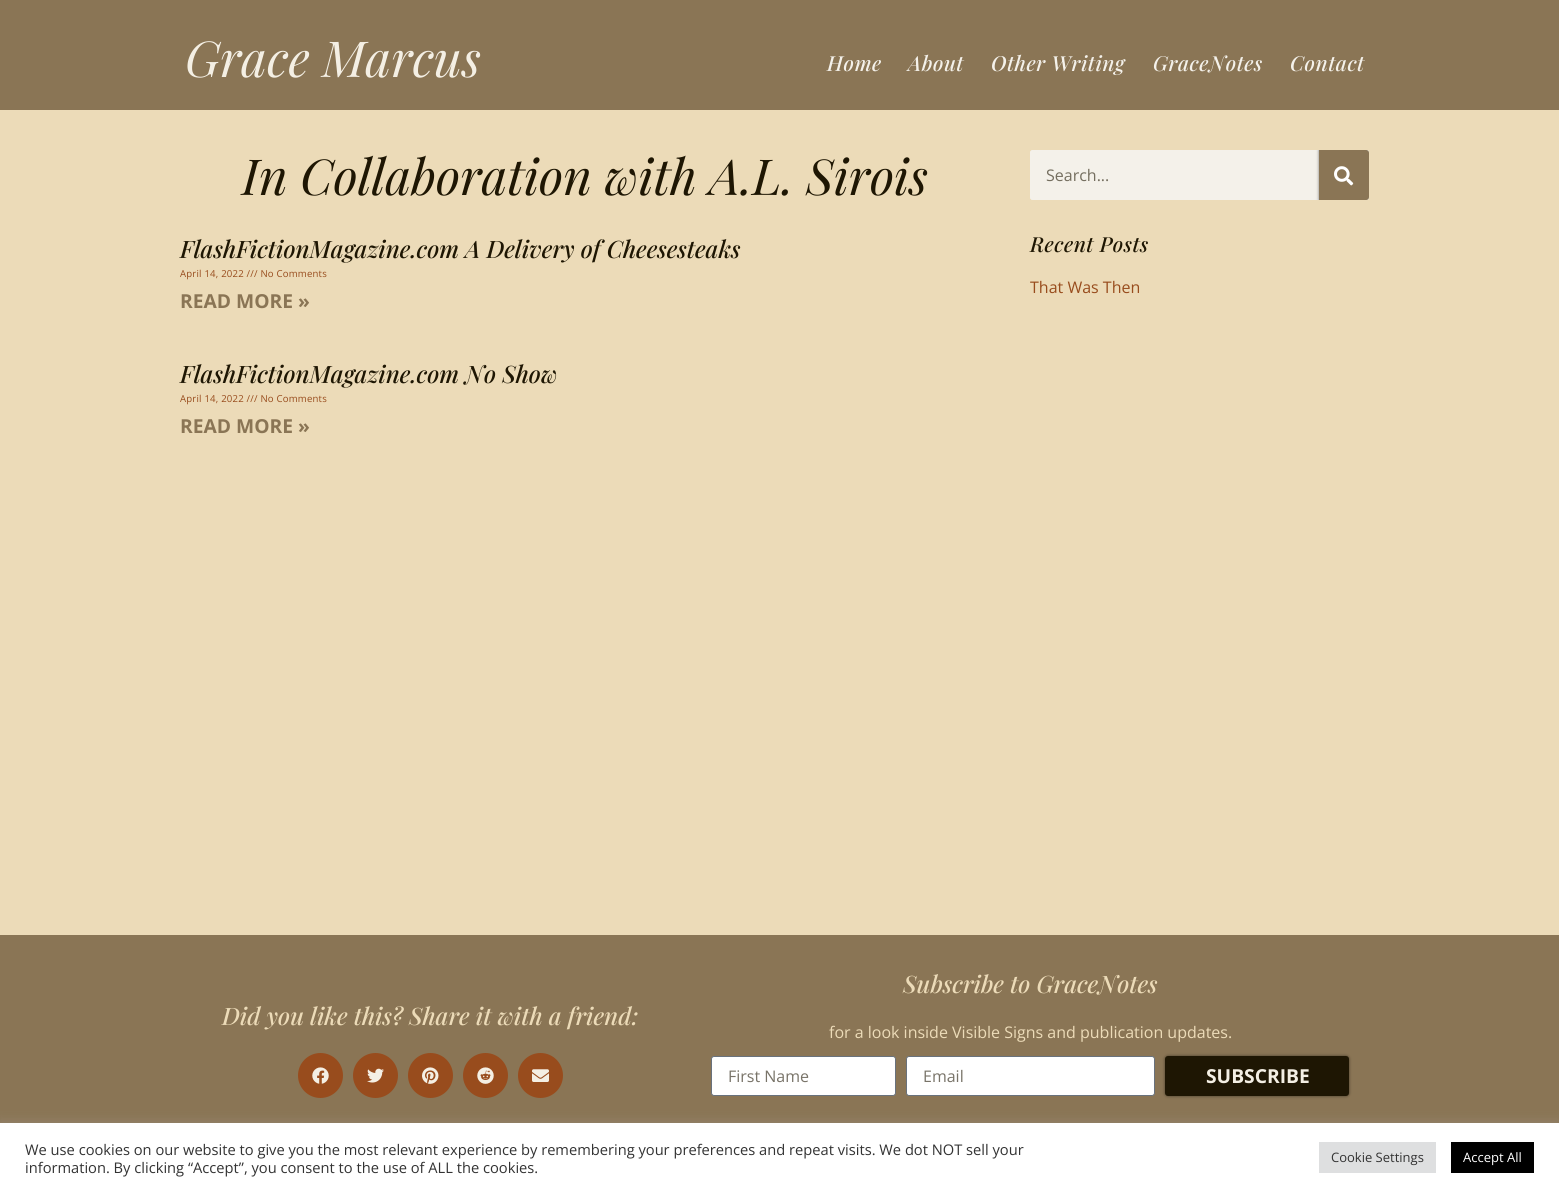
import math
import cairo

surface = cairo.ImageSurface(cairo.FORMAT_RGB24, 1559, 1192)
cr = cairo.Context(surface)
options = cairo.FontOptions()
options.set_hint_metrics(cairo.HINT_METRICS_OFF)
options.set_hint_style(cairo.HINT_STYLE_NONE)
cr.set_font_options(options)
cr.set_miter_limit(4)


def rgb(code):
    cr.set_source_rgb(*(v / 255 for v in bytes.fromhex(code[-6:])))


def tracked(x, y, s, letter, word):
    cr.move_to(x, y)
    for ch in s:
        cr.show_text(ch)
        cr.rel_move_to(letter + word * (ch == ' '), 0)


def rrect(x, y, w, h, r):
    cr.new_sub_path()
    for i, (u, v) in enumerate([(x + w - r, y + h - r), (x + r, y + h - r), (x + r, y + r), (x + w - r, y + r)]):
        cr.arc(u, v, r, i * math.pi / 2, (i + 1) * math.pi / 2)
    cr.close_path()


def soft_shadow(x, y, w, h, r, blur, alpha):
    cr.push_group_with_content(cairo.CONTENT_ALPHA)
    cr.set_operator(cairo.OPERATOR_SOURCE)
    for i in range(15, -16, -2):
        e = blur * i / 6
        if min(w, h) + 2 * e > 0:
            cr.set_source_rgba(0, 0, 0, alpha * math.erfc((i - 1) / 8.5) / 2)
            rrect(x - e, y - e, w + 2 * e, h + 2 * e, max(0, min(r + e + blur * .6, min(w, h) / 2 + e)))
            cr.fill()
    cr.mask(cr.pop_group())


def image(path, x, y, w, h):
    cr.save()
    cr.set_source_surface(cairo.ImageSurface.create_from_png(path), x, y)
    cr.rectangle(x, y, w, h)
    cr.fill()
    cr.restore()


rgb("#ecdbb8")
cr.paint()
rgb("#8a7555")
cr.rectangle(0, 0, 1559, 110)
cr.fill()
rgb("#f1f2f3")
rrect(1030, 150, 339, 50, 3)
cr.fill()
rgb("#f4f1ea")
rrect(1030, 150, 289, 50, 3)
cr.fill()
cr.save()
rrect(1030, 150, 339, 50, 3)
cr.clip()
rgb("#000000")
soft_shadow(1319, 150, 50, 50, 0, 1.5, 0.5)
cr.restore()
rgb("#8a7555")
cr.new_path()
cr.move_to(1319, 150)
cr.line_to(1366, 150)
cr.curve_to(1367.5, 150, 1369, 151.5, 1369, 153)
cr.line_to(1369, 197)
cr.curve_to(1369, 198.5, 1367.5, 200, 1366, 200)
cr.line_to(1319, 200)
cr.close_path()
cr.fill()
image("img/1.png", 1334, 166, 20, 20)
cr.rectangle(0, 935, 1559, 188)
cr.fill()
rgb("#984c1d")
cr.arc(320.5, 1075.5, 22.5, 0, 2 * math.pi)
cr.fill()
image("img/2.png", 312, 1067, 17, 17)
cr.arc(375.5, 1075.5, 22.5, 0, 2 * math.pi)
cr.fill()
image("img/3.png", 367, 1068, 17, 15)
cr.arc(430.5, 1075.5, 22.5, 0, 2 * math.pi)
cr.fill()
image("img/4.png", 422, 1067, 17, 17)
cr.arc(485.5, 1075.5, 22.5, 0, 2 * math.pi)
cr.fill()
image("img/5.png", 477, 1067, 17, 17)
cr.arc(540.5, 1075.5, 22.5, 0, 2 * math.pi)
cr.fill()
image("img/6.png", 532, 1069, 17, 13)
rgb("#ffffff")
rrect(711.5, 1056.5, 184, 39, 2.5)
cr.fill_preserve()
rgb("#69727d")
cr.set_line_width(1)
cr.stroke()
rgb("#ffffff")
rrect(906.5, 1056.5, 248, 39, 2.5)
cr.fill_preserve()
rgb("#69727d")
cr.stroke()
rgb("#000000")
soft_shadow(1165, 1056, 184, 40, 3, 1.5, 0.5)
rgb("#1e1603")
rrect(1165, 1056, 184, 40, 3)
cr.fill()
rgb("#acabab")
soft_shadow(0, 1122, 1559, 69, 0, 5, 0.3)
for x, y, w, h, color in [
    (0, 1123, 1559, 69, "#ffffff"),
    (1319, 1142, 117, 31, "#dedfe0"),
    (1451, 1142, 83, 31, "#000000"),
]:
    rgb(color)
    cr.rectangle(x, y, w, h)
    cr.fill()
cr.select_font_face("Playfair Display", cairo.FONT_SLANT_ITALIC)
cr.set_font_size(49.6)
rgb("#f4efe4")
cr.move_to(185, 77)
cr.show_text("Grace Marcus")
cr.select_font_face("Playfair Display Medium", cairo.FONT_SLANT_ITALIC)
cr.set_font_size(20.75)
rgb("#f4f1ea")
for x, y, s in [
    (827, 71, "Home"),
    (908, 71, "About"),
    (991, 71, "Other Writing"),
    (1153, 71, "GraceNotes"),
    (1290, 71, "Contact"),
]:
    tracked(x, y, s, 0.5, 0)
cr.select_font_face("Playfair Display", cairo.FONT_SLANT_ITALIC)
cr.set_font_size(49.6)
rgb("#1e1603")
cr.move_to(242, 195)
cr.show_text("In Collaboration with A.L. Sirois")
cr.select_font_face("Playfair Display Medium", cairo.FONT_SLANT_ITALIC)
cr.set_font_size(24)
cr.move_to(180, 258)
cr.show_text("FlashFictionMagazine.com A Delivery of Cheesesteaks")
cr.select_font_face("Open Sans")
cr.set_font_size(9.6)
rgb("#984c1d")
tracked(180, 277, "April 14, 2022 /// No Comments", 0.2, 0)
cr.select_font_face("Open Sans", cairo.FONT_SLANT_NORMAL, cairo.FONT_WEIGHT_BOLD)
cr.set_font_size(19.25)
rgb("#8a7555")
cr.move_to(180, 308)
cr.show_text("READ MORE »")
cr.select_font_face("Playfair Display Medium", cairo.FONT_SLANT_ITALIC)
cr.set_font_size(24)
rgb("#1e1603")
cr.move_to(180, 383)
cr.show_text("FlashFictionMagazine.com No Show")
cr.select_font_face("Open Sans")
cr.set_font_size(9.6)
rgb("#984c1d")
tracked(180, 402, "April 14, 2022 /// No Comments", 0.2, 0)
cr.select_font_face("Open Sans", cairo.FONT_SLANT_NORMAL, cairo.FONT_WEIGHT_BOLD)
cr.set_font_size(19.25)
rgb("#8a7555")
cr.move_to(180, 433)
cr.show_text("READ MORE »")
cr.select_font_face("Open Sans")
cr.set_font_size(16)
rgb("#746e5f")
cr.move_to(1046, 181)
cr.show_text("Search...")
cr.select_font_face("Playfair Display Medium", cairo.FONT_SLANT_ITALIC)
cr.set_font_size(20.75)
rgb("#1e1603")
tracked(1030, 252, "Recent Posts", 0.5, 0)
cr.select_font_face("Open Sans")
cr.set_font_size(16)
rgb("#984c1d")
cr.move_to(1030, 293)
cr.show_text("That Was Then")
cr.select_font_face("Playfair Display Medium", cairo.FONT_SLANT_ITALIC)
cr.set_font_size(24)
rgb("#ecdbb8")
cr.move_to(222, 1025)
cr.show_text("Did you like this? Share it with a friend:")
cr.move_to(903, 993)
cr.show_text("Subscribe to GraceNotes")
cr.select_font_face("Open Sans")
cr.set_font_size(16)
cr.move_to(829, 1038)
cr.show_text("for a look inside Visible Signs and publication updates.")
rgb("#787368")
cr.move_to(728, 1082)
cr.show_text("First Name")
cr.move_to(923, 1082)
cr.show_text("Email")
cr.select_font_face("Open Sans", cairo.FONT_SLANT_NORMAL, cairo.FONT_WEIGHT_BOLD)
cr.set_font_size(19.25)
rgb("#f4efe4")
cr.move_to(1206, 1083)
cr.show_text("SUBSCRIBE")
cr.select_font_face("Open Sans")
cr.set_font_size(14.67)
rgb("#333333")
cr.move_to(25, 1155)
cr.show_text("We use cookies on our website to give you the most relevant experience by remembering your preferences and repeat visits. We dot NOT sell your")
cr.move_to(25, 1173)
cr.show_text("information. By clicking “Accept”, you consent to the use of ALL the cookies.")
cr.set_font_size(13)
cr.move_to(1331, 1162)
cr.show_text("Cookie Settings")
rgb("#ffffff")
cr.move_to(1463, 1162)
cr.show_text("Accept All")
surface.write_to_png("page.png")
